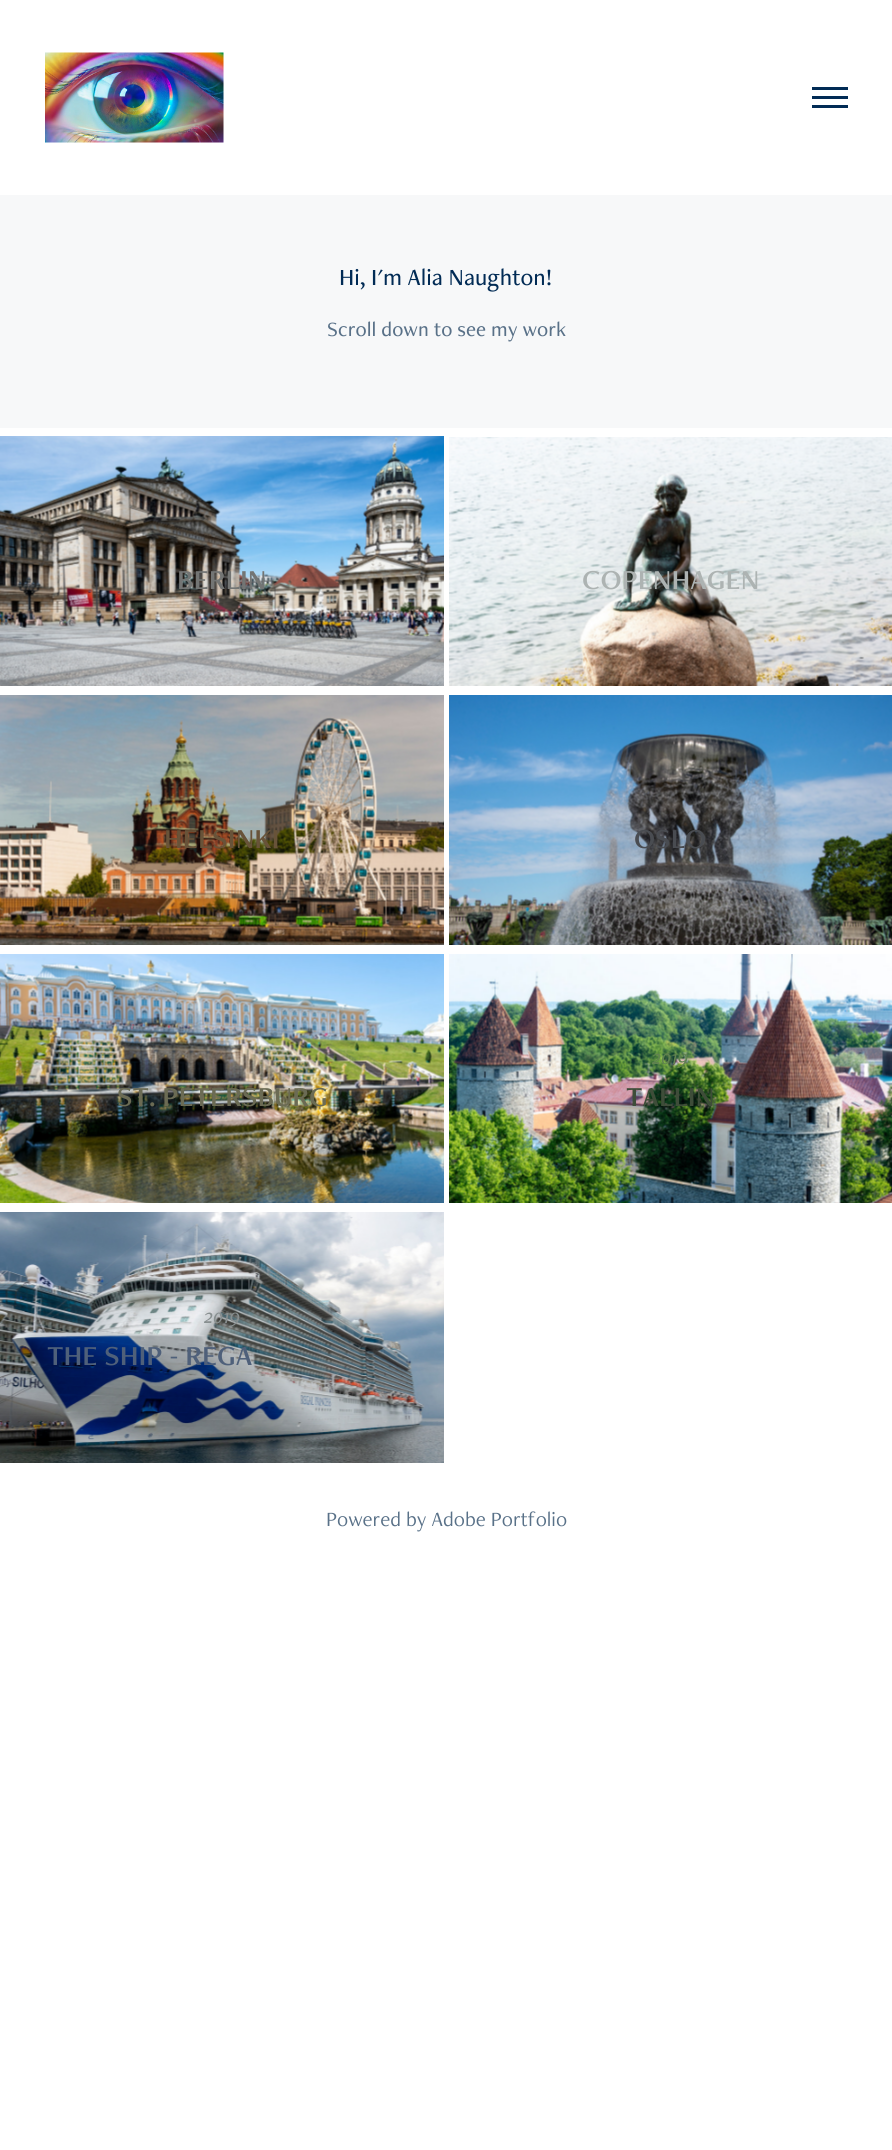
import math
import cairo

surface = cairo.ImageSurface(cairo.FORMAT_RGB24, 892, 2150)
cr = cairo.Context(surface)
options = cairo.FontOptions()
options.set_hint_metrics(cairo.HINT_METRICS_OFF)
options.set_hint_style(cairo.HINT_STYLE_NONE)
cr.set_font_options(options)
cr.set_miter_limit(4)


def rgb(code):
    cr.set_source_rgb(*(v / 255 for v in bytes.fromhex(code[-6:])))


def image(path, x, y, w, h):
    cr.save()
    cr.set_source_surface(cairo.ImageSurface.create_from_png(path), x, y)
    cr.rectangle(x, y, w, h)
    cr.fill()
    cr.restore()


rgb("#ffffff")
cr.paint()
image("img/1.png", 45, 52, 179, 91)
for x, y, w, h, color in [
    (812, 87, 36, 3, "#012b55"),
    (812, 96, 36, 3, "#012b55"),
    (812, 105, 36, 3, "#012b55"),
    (0, 195, 892, 233, "#f7f8f9"),
]:
    rgb(color)
    cr.rectangle(x, y, w, h)
    cr.fill()
image("img/2.png", 0, 436, 444, 250)
image("img/3.png", 449, 437, 443, 249)
image("img/4.png", 0, 695, 444, 250)
image("img/5.png", 449, 695, 443, 250)
image("img/6.png", 0, 954, 444, 249)
image("img/7.png", 449, 954, 443, 249)
image("img/8.png", 0, 1212, 444, 251)
cr.select_font_face("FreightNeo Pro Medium")
cr.set_font_size(24)
rgb("#012b55")
cr.move_to(339, 285)
cr.show_text("Hi, I'm Alia Naughton!")
cr.set_font_size(21)
rgb("#597188")
cr.move_to(327, 336)
cr.show_text("Scroll down to see my work")
cr.select_font_face("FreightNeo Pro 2")
cr.set_font_size(28.5)
rgb("#737574")
cr.move_to(177, 589)
cr.show_text("BERLIN")
rgb("#adb3b2")
cr.move_to(582, 589)
cr.show_text("COPENHAGEN")
rgb("#685339")
cr.move_to(164, 848)
cr.show_text("HELSINKI")
rgb("#494c51")
cr.move_to(634, 848)
cr.show_text("OSLO")
rgb("#6b6b54")
cr.move_to(117, 1106)
cr.show_text("ST. PETERSBURG")
cr.select_font_face("FreightNeo Pro Medium", cairo.FONT_SLANT_ITALIC)
cr.set_font_size(21)
rgb("#608250")
cr.move_to(652, 1064)
cr.show_text("2019")
cr.select_font_face("FreightNeo Pro 2")
cr.set_font_size(28.5)
rgb("#3e4d39")
cr.move_to(626, 1106)
cr.show_text("TALLIN")
cr.select_font_face("FreightNeo Pro Medium", cairo.FONT_SLANT_ITALIC)
cr.set_font_size(21)
rgb("#888f90")
cr.move_to(204, 1323)
cr.show_text("2019")
cr.select_font_face("FreightNeo Pro 2")
cr.set_font_size(28.5)
rgb("#4f607a")
cr.move_to(47, 1365)
cr.show_text("THE SHIP - REGA")
cr.select_font_face("FreightNeo Pro")
cr.set_font_size(21)
rgb("#597188")
cr.move_to(326, 1526)
cr.show_text("Powered by Adobe Portfolio")
surface.write_to_png("page.png")
